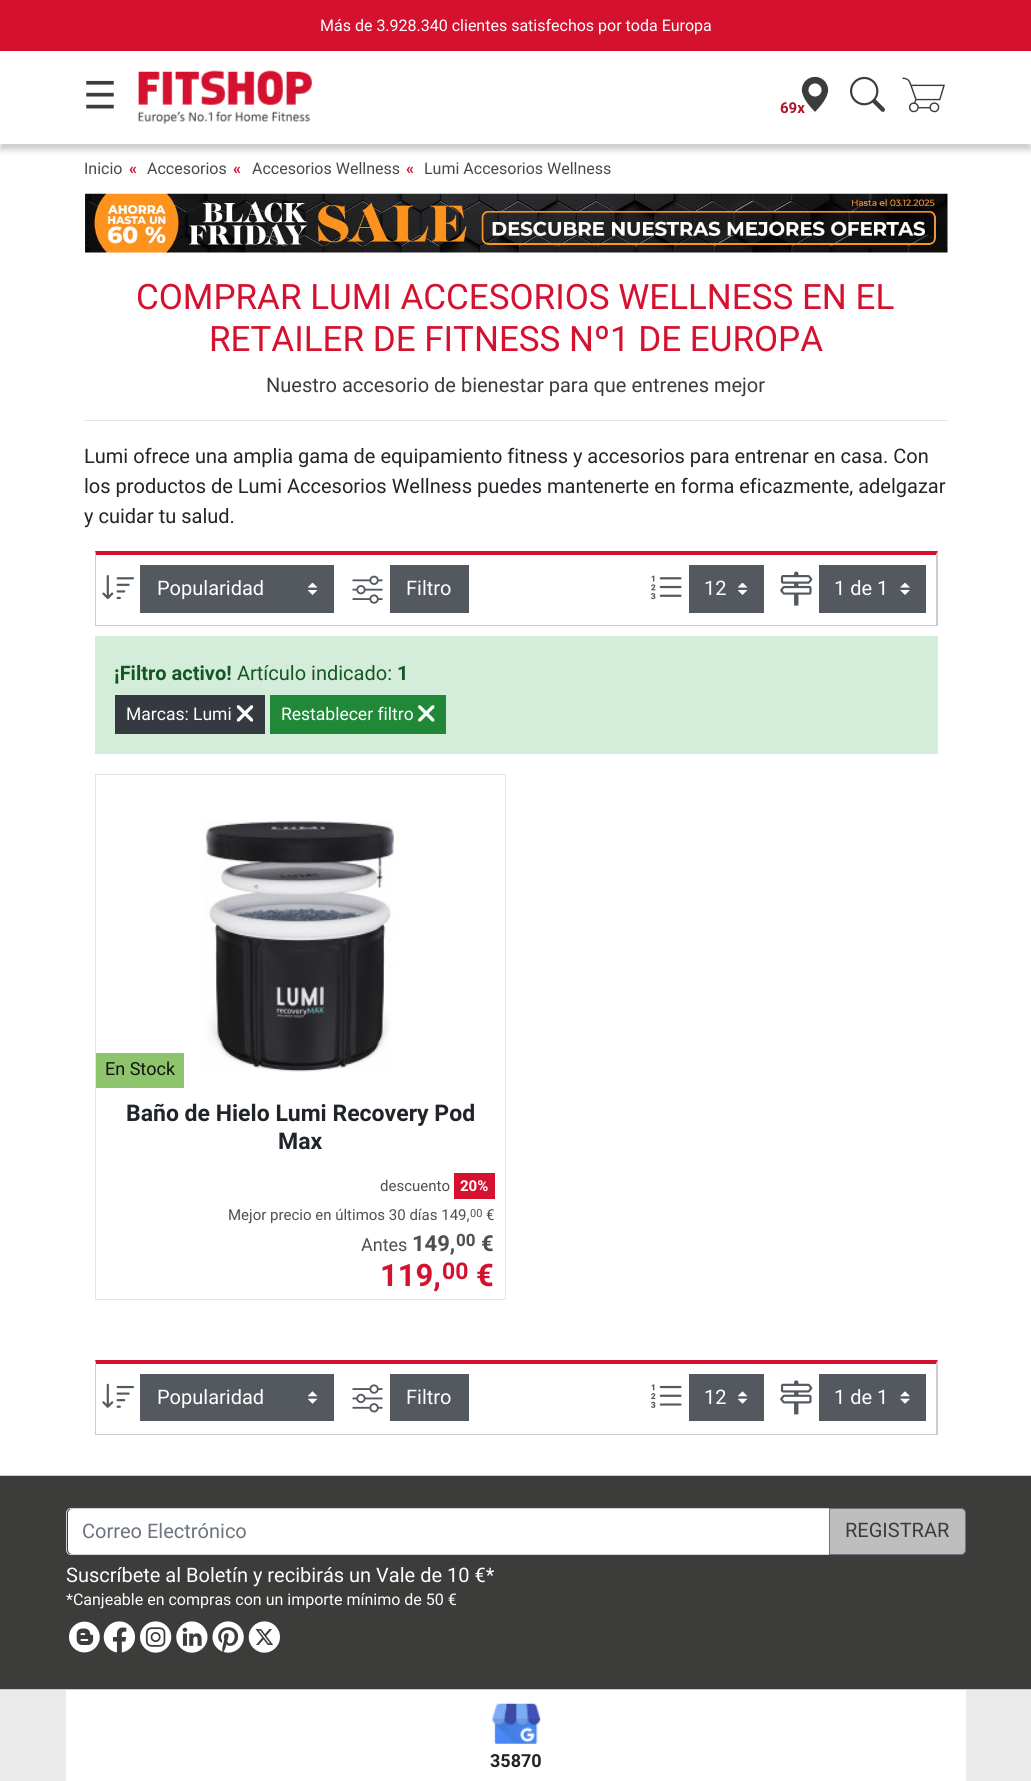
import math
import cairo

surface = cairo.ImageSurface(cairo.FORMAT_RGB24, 1031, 1781)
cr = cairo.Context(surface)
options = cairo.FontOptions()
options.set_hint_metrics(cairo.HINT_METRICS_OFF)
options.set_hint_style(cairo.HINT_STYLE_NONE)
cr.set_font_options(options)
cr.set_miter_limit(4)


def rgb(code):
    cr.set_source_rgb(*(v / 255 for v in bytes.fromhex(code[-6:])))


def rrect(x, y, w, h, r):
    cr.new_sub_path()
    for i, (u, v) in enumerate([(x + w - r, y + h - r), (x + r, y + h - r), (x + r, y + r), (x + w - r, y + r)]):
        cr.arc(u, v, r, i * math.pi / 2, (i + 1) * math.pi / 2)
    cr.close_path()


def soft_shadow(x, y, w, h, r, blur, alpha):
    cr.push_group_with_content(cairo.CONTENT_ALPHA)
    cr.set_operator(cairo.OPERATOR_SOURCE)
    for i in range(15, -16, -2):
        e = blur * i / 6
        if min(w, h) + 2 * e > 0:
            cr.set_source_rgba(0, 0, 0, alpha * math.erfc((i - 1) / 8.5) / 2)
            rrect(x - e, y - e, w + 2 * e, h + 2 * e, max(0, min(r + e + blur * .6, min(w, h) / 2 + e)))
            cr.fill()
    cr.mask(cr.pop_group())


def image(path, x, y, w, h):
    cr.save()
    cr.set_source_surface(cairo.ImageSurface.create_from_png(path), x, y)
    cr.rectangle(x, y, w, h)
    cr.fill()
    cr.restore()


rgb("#ffffff")
cr.paint()
rgb("#000000")
soft_shadow(0, 6, 1031, 144, 0, 3, 0.2)
rgb("#ffffff")
cr.rectangle(0, 51, 1031, 93)
cr.fill()
rgb("#d51130")
cr.rectangle(0, 0, 1031, 51)
cr.fill()
image("img/1.png", 86, 80, 28, 29)
image("img/2.png", 137, 70, 175, 54)
image("img/3.png", 801, 76, 28, 36)
image("img/4.png", 850, 76, 35, 36)
image("img/5.png", 902, 77, 43, 36)
image("img/6.png", 85, 193, 863, 60)
rgb("#e6e6e6")
cr.rectangle(85, 420, 863, 1)
cr.fill()
rgb("#d51130")
cr.new_path()
cr.move_to(95, 551)
cr.line_to(938, 551)
cr.line_to(936, 555)
cr.line_to(96, 555)
cr.close_path()
cr.fill()
rgb("#cccccc")
cr.new_path()
cr.move_to(938, 551)
cr.line_to(938, 626)
cr.line_to(936, 625)
cr.line_to(936, 555)
cr.close_path()
cr.fill()
cr.rectangle(95, 625, 843, 1)
cr.fill()
cr.new_path()
cr.move_to(95, 626)
cr.line_to(95, 551)
cr.line_to(96, 555)
cr.line_to(96, 625)
cr.close_path()
cr.fill()
image("img/7.png", 102, 575, 32, 25)
rgb("#54595f")
cr.rectangle(140, 565, 194, 48)
cr.fill()
image("img/8.png", 308, 583, 10, 12)
image("img/9.png", 352, 575, 31, 29)
cr.rectangle(390, 565, 79, 48)
cr.fill()
image("img/10.png", 651, 575, 31, 25)
cr.rectangle(689, 565, 75, 48)
cr.fill()
image("img/8.png", 738, 583, 10, 12)
image("img/11.png", 780, 571, 33, 35)
cr.rectangle(819, 565, 107, 48)
cr.fill()
image("img/12.png", 900, 583, 10, 12)
rgb("#d4edda")
cr.rectangle(95, 636, 843, 118)
cr.fill()
rgb("#343a40")
cr.rectangle(115, 695, 150, 39)
cr.fill()
image("img/13.png", 236, 705, 18, 17)
rgb("#218838")
cr.rectangle(270, 695, 176, 39)
cr.fill()
image("img/14.png", 418, 705, 17, 17)
cr.rectangle(95.5, 774.5, 410, 525)
rgb("#e5e5e5")
cr.set_line_width(1)
cr.stroke()
rgb("#8ec46c")
cr.rectangle(96, 1053, 88, 35)
cr.fill()
image("img/15.png", 204, 820, 190, 252)
rgb("#d51130")
cr.rectangle(454, 1173, 41, 26)
cr.fill()
cr.new_path()
cr.move_to(95, 1360)
cr.line_to(938, 1360)
cr.line_to(936, 1364)
cr.line_to(96, 1364)
cr.close_path()
cr.fill()
rgb("#cccccc")
cr.new_path()
cr.move_to(938, 1360)
cr.line_to(938, 1435)
cr.line_to(936, 1434)
cr.line_to(936, 1364)
cr.close_path()
cr.fill()
cr.rectangle(95, 1434, 843, 1)
cr.fill()
cr.new_path()
cr.move_to(95, 1435)
cr.line_to(95, 1360)
cr.line_to(96, 1364)
cr.line_to(96, 1434)
cr.close_path()
cr.fill()
image("img/16.png", 102, 1383, 32, 25)
rgb("#54595f")
cr.rectangle(140, 1374, 194, 47)
cr.fill()
image("img/17.png", 308, 1391, 10, 13)
image("img/18.png", 352, 1384, 31, 29)
cr.rectangle(390, 1374, 79, 47)
cr.fill()
image("img/19.png", 651, 1384, 31, 24)
cr.rectangle(689, 1374, 75, 47)
cr.fill()
image("img/17.png", 738, 1391, 10, 13)
image("img/20.png", 780, 1380, 33, 35)
cr.rectangle(819, 1374, 107, 47)
cr.fill()
image("img/21.png", 900, 1391, 10, 13)
for x, y, w, h, color in [
    (0, 1690, 1031, 91, "#e9eae9"),
    (0, 1476, 1031, 213, "#3c3c3b"),
    (0, 1475, 1031, 1, "#cccccc"),
    (0, 1689, 1031, 1, "#cccccc"),
]:
    rgb(color)
    cr.rectangle(x, y, w, h)
    cr.fill()
rgb("#ffffff")
cr.new_path()
cr.move_to(72, 1509)
cr.line_to(829, 1509)
cr.line_to(829, 1554)
cr.line_to(72, 1554)
cr.curve_to(70, 1554, 68, 1552, 68, 1550)
cr.line_to(68, 1513)
cr.curve_to(68, 1511, 70, 1509, 72, 1509)
cr.close_path()
cr.fill()
cr.new_path()
cr.move_to(71, 1508.5)
cr.line_to(829.5, 1508.5)
cr.line_to(829.5, 1554.5)
cr.line_to(71, 1554.5)
cr.curve_to(68.5, 1554.5, 66.5, 1552.5, 66.5, 1550)
cr.line_to(66.5, 1513)
cr.curve_to(66.5, 1510.5, 68.5, 1508.5, 71, 1508.5)
cr.close_path()
rgb("#ced4da")
cr.stroke()
rgb("#bebebe")
cr.new_path()
cr.move_to(829.5, 1508.5)
cr.line_to(961, 1508.5)
cr.curve_to(963.5, 1508.5, 965.5, 1510.5, 965.5, 1513)
cr.line_to(965.5, 1550)
cr.curve_to(965.5, 1552.5, 963.5, 1554.5, 961, 1554.5)
cr.line_to(829.5, 1554.5)
cr.close_path()
cr.fill_preserve()
rgb("#6c757d")
cr.stroke()
image("img/22.png", 69, 1621, 31, 32)
image("img/23.png", 103, 1621, 32, 32)
image("img/24.png", 140, 1621, 32, 32)
image("img/25.png", 176, 1621, 32, 32)
image("img/26.png", 212, 1621, 32, 32)
image("img/27.png", 248, 1621, 32, 32)
rgb("#ffffff")
cr.rectangle(66, 1690, 900, 91)
cr.fill()
image("img/28.png", 492, 1703, 49, 41)
cr.select_font_face("Roboto")
cr.set_font_size(16)
cr.move_to(320, 31)
cr.show_text("Más de 3.928.340 clientes satisfechos por toda Europa")
cr.select_font_face("Roboto", cairo.FONT_SLANT_NORMAL, cairo.FONT_WEIGHT_BOLD)
cr.set_font_size(15)
rgb("#b01229")
cr.move_to(780, 113)
cr.show_text("69x")
cr.select_font_face("Roboto")
cr.set_font_size(16)
rgb("#494949")
cr.move_to(84, 174)
cr.show_text("Inicio")
cr.select_font_face("Roboto", cairo.FONT_SLANT_NORMAL, cairo.FONT_WEIGHT_BOLD)
rgb("#d51130")
cr.move_to(129, 174)
cr.show_text("«")
cr.select_font_face("Roboto")
rgb("#494949")
cr.move_to(147, 174)
cr.show_text("Accesorios")
cr.select_font_face("Roboto", cairo.FONT_SLANT_NORMAL, cairo.FONT_WEIGHT_BOLD)
rgb("#d51130")
cr.move_to(233, 174)
cr.show_text("«")
cr.select_font_face("Roboto")
rgb("#494949")
cr.move_to(252, 174)
cr.show_text("Accesorios Wellness")
cr.select_font_face("Roboto", cairo.FONT_SLANT_NORMAL, cairo.FONT_WEIGHT_BOLD)
rgb("#d51130")
cr.move_to(406, 174)
cr.show_text("«")
cr.select_font_face("Roboto")
rgb("#494949")
cr.move_to(424, 174)
cr.show_text("Lumi Accesorios Wellness")
cr.set_font_size(35)
rgb("#d51130")
cr.move_to(136, 309)
cr.show_text("COMPRAR LUMI ACCESORIOS WELLNESS EN EL")
cr.move_to(209, 351)
cr.show_text("RETAILER DE FITNESS Nº1 DE EUROPA")
cr.set_font_size(20)
rgb("#3c3c3b")
cr.move_to(266, 392)
cr.show_text("Nuestro accesorio de bienestar para que entrenes mejor")
rgb("#212529")
for x, y, s in [
    (84, 463, "Lumi ofrece una amplia gama de equipamiento fitness y accesorios para entrenar en casa. Con"),
    (84, 493, "los productos de Lumi Accesorios Wellness puedes mantenerte en forma eficazmente, adelgazar"),
    (84, 523, "y cuidar tu salud."),
]:
    cr.move_to(x, y)
    cr.show_text(s)
rgb("#ffffff")
for x, y, s in [
    (157, 595, "Popularidad"),
    (406, 595, "Filtro"),
    (704, 595, "12"),
    (834, 595, "1 de 1"),
]:
    cr.move_to(x, y)
    cr.show_text(s)
cr.select_font_face("Roboto", cairo.FONT_SLANT_NORMAL, cairo.FONT_WEIGHT_BOLD)
rgb("#155724")
cr.move_to(114, 680)
cr.show_text("¡Filtro activo!")
cr.select_font_face("Roboto")
cr.move_to(237, 680)
cr.show_text("Artículo indicado:")
cr.select_font_face("Roboto", cairo.FONT_SLANT_NORMAL, cairo.FONT_WEIGHT_BOLD)
cr.move_to(397, 680)
cr.show_text("1")
cr.select_font_face("Roboto")
cr.set_font_size(17.5)
rgb("#ffffff")
cr.move_to(126, 720)
cr.show_text("Marcas: Lumi")
cr.move_to(281, 720)
cr.show_text("Restablecer filtro")
cr.set_font_size(18)
rgb("#141414")
cr.move_to(105, 1075)
cr.show_text("En Stock")
cr.select_font_face("Roboto", cairo.FONT_SLANT_NORMAL, cairo.FONT_WEIGHT_BOLD)
cr.set_font_size(23)
rgb("#212529")
cr.move_to(126, 1121)
cr.show_text("Baño de Hielo Lumi Recovery Pod")
cr.move_to(278, 1149)
cr.show_text("Max")
cr.select_font_face("Roboto")
cr.set_font_size(15)
rgb("#4f4f4f")
cr.move_to(380, 1191)
cr.show_text("descuento")
cr.select_font_face("Roboto", cairo.FONT_SLANT_NORMAL, cairo.FONT_WEIGHT_BOLD)
rgb("#ffffff")
cr.move_to(460, 1191)
cr.show_text("20%")
cr.select_font_face("Roboto")
rgb("#4f4f4f")
cr.move_to(228, 1220)
cr.show_text("Mejor precio en últimos 30 días 149,")
cr.set_font_size(11)
cr.move_to(470, 1217)
cr.show_text("00")
cr.set_font_size(15)
cr.move_to(486, 1220)
cr.show_text("€")
cr.set_font_size(18)
cr.move_to(361, 1251)
cr.show_text("Antes")
cr.select_font_face("Roboto", cairo.FONT_SLANT_NORMAL, cairo.FONT_WEIGHT_BOLD)
cr.set_font_size(22)
cr.move_to(412, 1251)
cr.show_text("149,")
cr.set_font_size(17)
cr.move_to(456, 1246)
cr.show_text("00")
cr.set_font_size(22)
cr.move_to(481, 1251)
cr.show_text("€")
cr.set_font_size(31)
rgb("#d51130")
cr.move_to(380, 1286)
cr.show_text("119,")
cr.set_font_size(23)
cr.move_to(442, 1279)
cr.show_text("00")
cr.set_font_size(31)
cr.move_to(476, 1286)
cr.show_text("€")
cr.select_font_face("Roboto")
cr.set_font_size(20)
rgb("#ffffff")
for x, y, s in [
    (157, 1404, "Popularidad"),
    (406, 1404, "Filtro"),
    (704, 1404, "12"),
    (834, 1404, "1 de 1"),
]:
    cr.move_to(x, y)
    cr.show_text(s)
rgb("#6c757d")
cr.move_to(82, 1538)
cr.show_text("Correo Electrónico")
rgb("#3c3c3b")
cr.move_to(845, 1537)
cr.show_text("REGISTRAR")
rgb("#ffffff")
cr.move_to(66, 1582)
cr.show_text("Suscríbete al Boletín y recibirás un Vale de 10 €*")
cr.set_font_size(16)
cr.move_to(66, 1605)
cr.show_text("*Canjeable en compras con un importe mínimo de 50 €")
cr.select_font_face("Roboto", cairo.FONT_SLANT_NORMAL, cairo.FONT_WEIGHT_BOLD)
cr.set_font_size(18)
rgb("#212529")
cr.move_to(490, 1767)
cr.show_text("35870")
surface.write_to_png("page.png")
